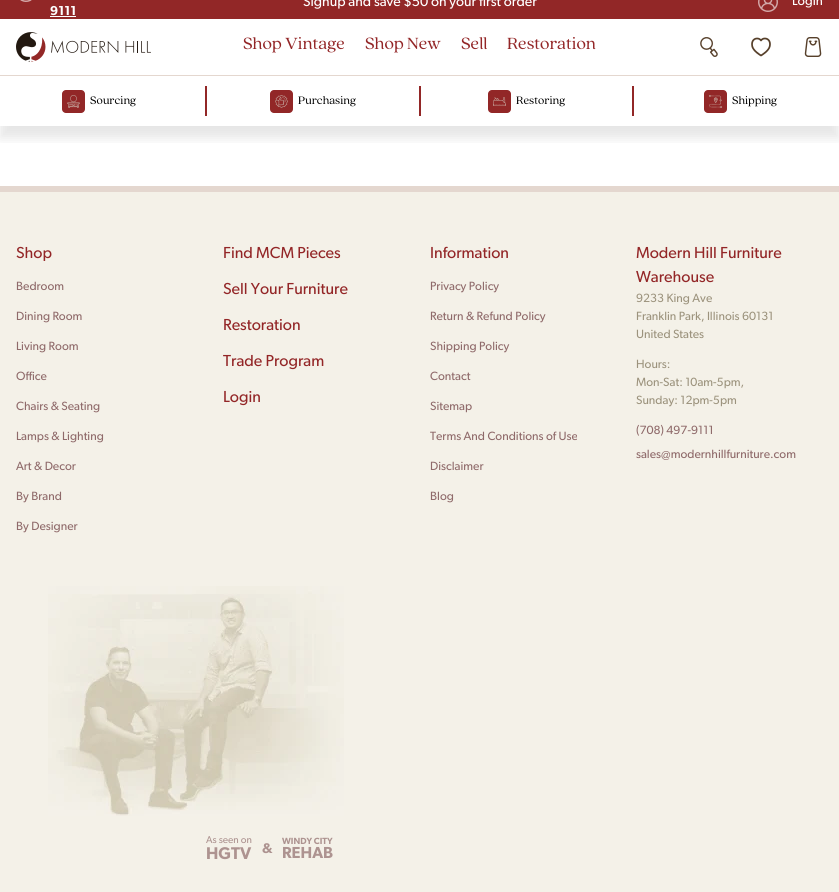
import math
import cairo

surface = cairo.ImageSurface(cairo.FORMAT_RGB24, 839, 892)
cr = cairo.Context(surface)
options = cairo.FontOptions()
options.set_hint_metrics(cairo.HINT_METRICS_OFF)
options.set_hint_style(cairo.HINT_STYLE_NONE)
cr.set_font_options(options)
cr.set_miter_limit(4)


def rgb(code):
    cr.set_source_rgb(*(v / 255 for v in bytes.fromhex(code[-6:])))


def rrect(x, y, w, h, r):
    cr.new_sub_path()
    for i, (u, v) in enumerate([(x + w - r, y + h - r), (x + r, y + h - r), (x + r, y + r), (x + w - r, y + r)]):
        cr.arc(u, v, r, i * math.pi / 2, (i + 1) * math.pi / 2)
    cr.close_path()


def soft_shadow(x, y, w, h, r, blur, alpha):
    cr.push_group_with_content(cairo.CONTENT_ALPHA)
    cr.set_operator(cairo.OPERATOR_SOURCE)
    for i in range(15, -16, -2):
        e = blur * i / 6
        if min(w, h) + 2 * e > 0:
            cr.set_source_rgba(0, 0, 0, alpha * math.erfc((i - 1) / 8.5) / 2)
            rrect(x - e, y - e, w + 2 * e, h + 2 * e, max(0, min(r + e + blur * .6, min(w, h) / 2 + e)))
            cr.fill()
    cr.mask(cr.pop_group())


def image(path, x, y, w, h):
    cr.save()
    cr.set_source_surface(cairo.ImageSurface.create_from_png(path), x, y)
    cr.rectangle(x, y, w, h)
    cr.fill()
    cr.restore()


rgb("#ffffff")
cr.paint()
rgb("#922727")
cr.rectangle(0, 0, 839, 19)
cr.fill()
image("img/1.png", 758, 0, 20, 12)
image("img/2.png", 20, 0, 12, 2)
rgb("#ffffff")
cr.rectangle(50, 16, 26, 1)
cr.fill()
image("img/3.png", 16, 32, 135, 30)
image("img/4.png", 700, 37, 18, 20)
image("img/5.png", 751, 37, 20, 20)
image("img/6.png", 804, 37, 18, 20)
cr.save()
cr.rectangle(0, 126, 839, 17)
cr.clip()
rgb("#000000")
soft_shadow(0, 87, 839, 51, 0, 6, 0.1)
cr.restore()
rgb("#e4d7cf")
cr.rectangle(0, 75, 839, 1)
cr.fill()
rgb("#922727")
rrect(62, 90, 23, 23, 4)
cr.fill()
image("img/7.png", 67, 95, 13, 13)
cr.rectangle(205, 86, 2, 30)
cr.fill()
rrect(270, 90, 23, 23, 4)
cr.fill()
image("img/8.png", 275, 95, 13, 13)
cr.rectangle(419, 86, 2, 30)
cr.fill()
rrect(488, 90, 23, 23, 4)
cr.fill()
image("img/9.png", 493, 97, 13, 9)
cr.rectangle(632, 86, 2, 30)
cr.fill()
rrect(704, 90, 23, 23, 4)
cr.fill()
image("img/10.png", 709, 95, 13, 13)
rgb("#f4f1e8")
cr.rectangle(0, 192, 839, 700)
cr.fill()
rgb("#e4d7cf")
cr.rectangle(0, 186, 839, 6)
cr.fill()
image("img/11.png", 48, 586, 296, 230)
cr.select_font_face("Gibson")
cr.set_font_size(14)
rgb("#ffffff")
cr.move_to(303, 6)
cr.show_text("Signup and save $50 on your first order")
cr.set_font_size(13)
cr.move_to(792, 5)
cr.show_text("Login")
cr.select_font_face("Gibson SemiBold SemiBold")
cr.move_to(50, 15)
cr.show_text("9111")
cr.select_font_face("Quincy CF")
cr.set_font_size(18)
rgb("#932627")
for x, y, s in [
    (243, 49, "Shop Vintage"),
    (365, 49, "Shop New"),
    (461, 49, "Sell"),
    (507, 49, "Restoration"),
]:
    cr.move_to(x, y)
    cr.show_text(s)
cr.set_font_size(12)
rgb("#000000")
for x, y, s in [
    (90, 104, "Sourcing"),
    (298, 104, "Purchasing"),
    (516, 104, "Restoring"),
    (732, 104, "Shipping"),
]:
    cr.move_to(x, y)
    cr.show_text(s)
cr.select_font_face("Gibson")
cr.set_font_size(16)
rgb("#932627")
cr.move_to(16, 258)
cr.show_text("Shop")
cr.set_font_size(12)
rgb("#8f6a6a")
for x, y, s in [
    (16, 290, "Bedroom"),
    (16, 320, "Dining Room"),
    (16, 350, "Living Room"),
    (16, 380, "Office"),
    (16, 410, "Chairs & Seating"),
    (16, 440, "Lamps & Lighting"),
    (16, 470, "Art & Decor"),
    (16, 500, "By Brand"),
    (16, 530, "By Designer"),
]:
    cr.move_to(x, y)
    cr.show_text(s)
cr.set_font_size(16)
rgb("#932627")
for x, y, s in [
    (223, 258, "Find MCM Pieces"),
    (223, 294, "Sell Your Furniture"),
    (223, 330, "Restoration"),
    (223, 366, "Trade Program"),
    (223, 402, "Login"),
    (430, 258, "Information"),
]:
    cr.move_to(x, y)
    cr.show_text(s)
cr.set_font_size(12)
rgb("#8f6a6a")
for x, y, s in [
    (430, 290, "Privacy Policy"),
    (430, 320, "Return & Refund Policy"),
    (430, 350, "Shipping Policy"),
    (430, 380, "Contact"),
    (430, 410, "Sitemap"),
    (430, 440, "Terms And Conditions of Use"),
    (430, 470, "Disclaimer"),
    (430, 500, "Blog"),
]:
    cr.move_to(x, y)
    cr.show_text(s)
cr.set_font_size(16)
rgb("#932627")
cr.move_to(636, 258)
cr.show_text("Modern Hill Furniture")
cr.move_to(636, 282)
cr.show_text("Warehouse")
cr.set_font_size(12)
rgb("#9c937d")
for x, y, s in [
    (636, 302, "9233 King Ave"),
    (636, 320, "Franklin Park, Illinois 60131"),
    (636, 338, "United States"),
    (636, 368, "Hours:"),
    (636, 386, "Mon-Sat: 10am-5pm,"),
    (636, 404, "Sunday: 12pm-5pm"),
]:
    cr.move_to(x, y)
    cr.show_text(s)
rgb("#8f6a6a")
cr.move_to(636, 434)
cr.show_text("(708) 497-9111")
cr.move_to(636, 458)
cr.show_text("sales@modernhillfurniture.com")
cr.set_font_size(10)
rgb("#ad9390")
cr.move_to(206, 843)
cr.show_text("As seen on")
cr.select_font_face("Gibson SemiBold SemiBold")
cr.set_font_size(17)
cr.move_to(206, 859)
cr.show_text("HGTV")
cr.set_font_size(14)
cr.move_to(262, 853)
cr.show_text("&")
cr.set_font_size(9)
cr.move_to(282, 844)
cr.show_text("WINDY CITY")
cr.set_font_size(16)
cr.move_to(282, 858)
cr.show_text("REHAB")
surface.write_to_png("page.png")
